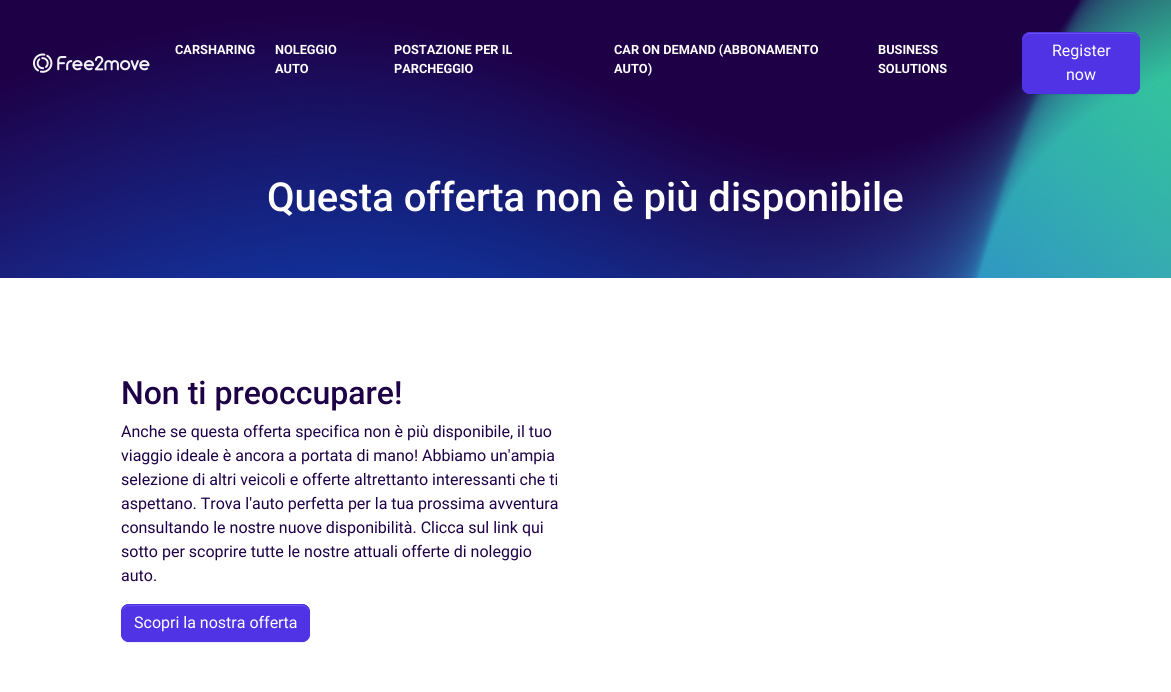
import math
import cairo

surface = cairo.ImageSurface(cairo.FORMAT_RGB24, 1171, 692)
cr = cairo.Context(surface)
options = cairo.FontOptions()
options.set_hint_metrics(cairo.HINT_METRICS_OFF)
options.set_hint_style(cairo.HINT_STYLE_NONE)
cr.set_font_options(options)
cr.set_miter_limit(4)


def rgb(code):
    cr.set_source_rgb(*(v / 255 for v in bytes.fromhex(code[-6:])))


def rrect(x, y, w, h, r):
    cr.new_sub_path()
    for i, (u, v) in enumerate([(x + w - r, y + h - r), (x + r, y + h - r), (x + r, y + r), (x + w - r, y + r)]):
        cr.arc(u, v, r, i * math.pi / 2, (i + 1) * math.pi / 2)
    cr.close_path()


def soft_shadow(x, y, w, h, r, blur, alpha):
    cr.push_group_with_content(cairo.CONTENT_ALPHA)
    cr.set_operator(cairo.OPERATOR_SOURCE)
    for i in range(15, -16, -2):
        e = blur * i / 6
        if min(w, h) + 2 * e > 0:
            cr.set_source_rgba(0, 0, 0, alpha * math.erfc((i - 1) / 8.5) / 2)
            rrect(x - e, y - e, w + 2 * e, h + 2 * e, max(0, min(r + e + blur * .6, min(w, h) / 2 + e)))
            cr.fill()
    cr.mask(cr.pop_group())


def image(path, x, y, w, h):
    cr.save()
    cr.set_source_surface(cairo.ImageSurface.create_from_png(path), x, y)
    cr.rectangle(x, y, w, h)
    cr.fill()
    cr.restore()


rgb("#ffffff")
cr.paint()
rgb("#1e0046")
cr.rectangle(0, 0, 1171, 278)
cr.fill()
image("img/1.png", 0, 0, 1171, 278)
image("img/2.png", 33, 53, 117, 20)
rgb("#000000")
soft_shadow(1022, 33, 118, 62, 8, 0.5, 0.07)
rgb("#5133e6")
rrect(1022, 32, 118, 62, 8)
cr.fill()
rgb("#6b52ea")
cr.new_path()
cr.move_to(1030, 34)
cr.line_to(1132, 34)
cr.curve_to(1136, 34, 1139, 37, 1139, 41)
cr.curve_to(1139, 29, 1122, 33, 1115, 33)
cr.line_to(1047, 33)
cr.curve_to(1040, 33, 1023, 29, 1023, 41)
cr.curve_to(1023, 37, 1026, 34, 1030, 34)
cr.close_path()
cr.fill()
rrect(1022.5, 32.5, 117, 61, 7.5)
rgb("#5133e6")
cr.set_line_width(1)
cr.stroke()
rgb("#000000")
soft_shadow(121, 605, 189, 38, 8, 0.5, 0.07)
rgb("#5133e6")
rrect(121, 604, 189, 38, 8)
cr.fill()
rgb("#6b52ea")
cr.new_path()
cr.move_to(129, 606)
cr.line_to(302, 606)
cr.curve_to(306, 606, 309, 609, 309, 613)
cr.line_to(309, 612)
cr.curve_to(309, 608, 306, 605, 302, 605)
cr.line_to(129, 605)
cr.curve_to(125, 605, 122, 608, 122, 612)
cr.line_to(122, 613)
cr.curve_to(122, 609, 125, 606, 129, 606)
cr.close_path()
cr.fill()
rrect(121.5, 604.5, 188, 37, 7.5)
rgb("#5133e6")
cr.stroke()
cr.select_font_face("Roboto", cairo.FONT_SLANT_NORMAL, cairo.FONT_WEIGHT_BOLD)
cr.set_font_size(12.75)
rgb("#ffffff")
for x, y, s in [
    (175, 54, "CARSHARING"),
    (275, 54, "NOLEGGIO"),
    (275, 73, "AUTO"),
    (394, 54, "POSTAZIONE PER IL"),
    (394, 73, "PARCHEGGIO"),
    (614, 54, "CAR ON DEMAND (ABBONAMENTO"),
    (614, 73, "AUTO)"),
    (878, 54, "BUSINESS"),
    (878, 73, "SOLUTIONS"),
]:
    cr.move_to(x, y)
    cr.show_text(s)
cr.select_font_face("Roboto")
cr.set_font_size(16)
cr.move_to(1052, 56)
cr.show_text("Register")
cr.move_to(1066, 80)
cr.show_text("now")
cr.select_font_face("Roboto Medium")
cr.set_font_size(40)
cr.move_to(267, 211)
cr.show_text("Questa offerta non è più disponibile")
cr.set_font_size(32)
rgb("#1e0046")
cr.move_to(121, 404)
cr.show_text("Non ti preoccupare!")
cr.select_font_face("Roboto")
cr.set_font_size(16)
for x, y, s in [
    (121, 437, "Anche se questa offerta specifica non è più disponibile, il tuo"),
    (121, 461, "viaggio ideale è ancora a portata di mano! Abbiamo un'ampia"),
    (121, 485, "selezione di altri veicoli e offerte altrettanto interessanti che ti"),
    (121, 509, "aspettano. Trova l'auto perfetta per la tua prossima avventura"),
    (121, 533, "consultando le nostre nuove disponibilità. Clicca sul link qui"),
    (121, 557, "sotto per scoprire tutte le nostre attuali offerte di noleggio"),
    (121, 581, "auto."),
]:
    cr.move_to(x, y)
    cr.show_text(s)
rgb("#ffffff")
cr.move_to(134, 628)
cr.show_text("Scopri la nostra offerta")
surface.write_to_png("page.png")
